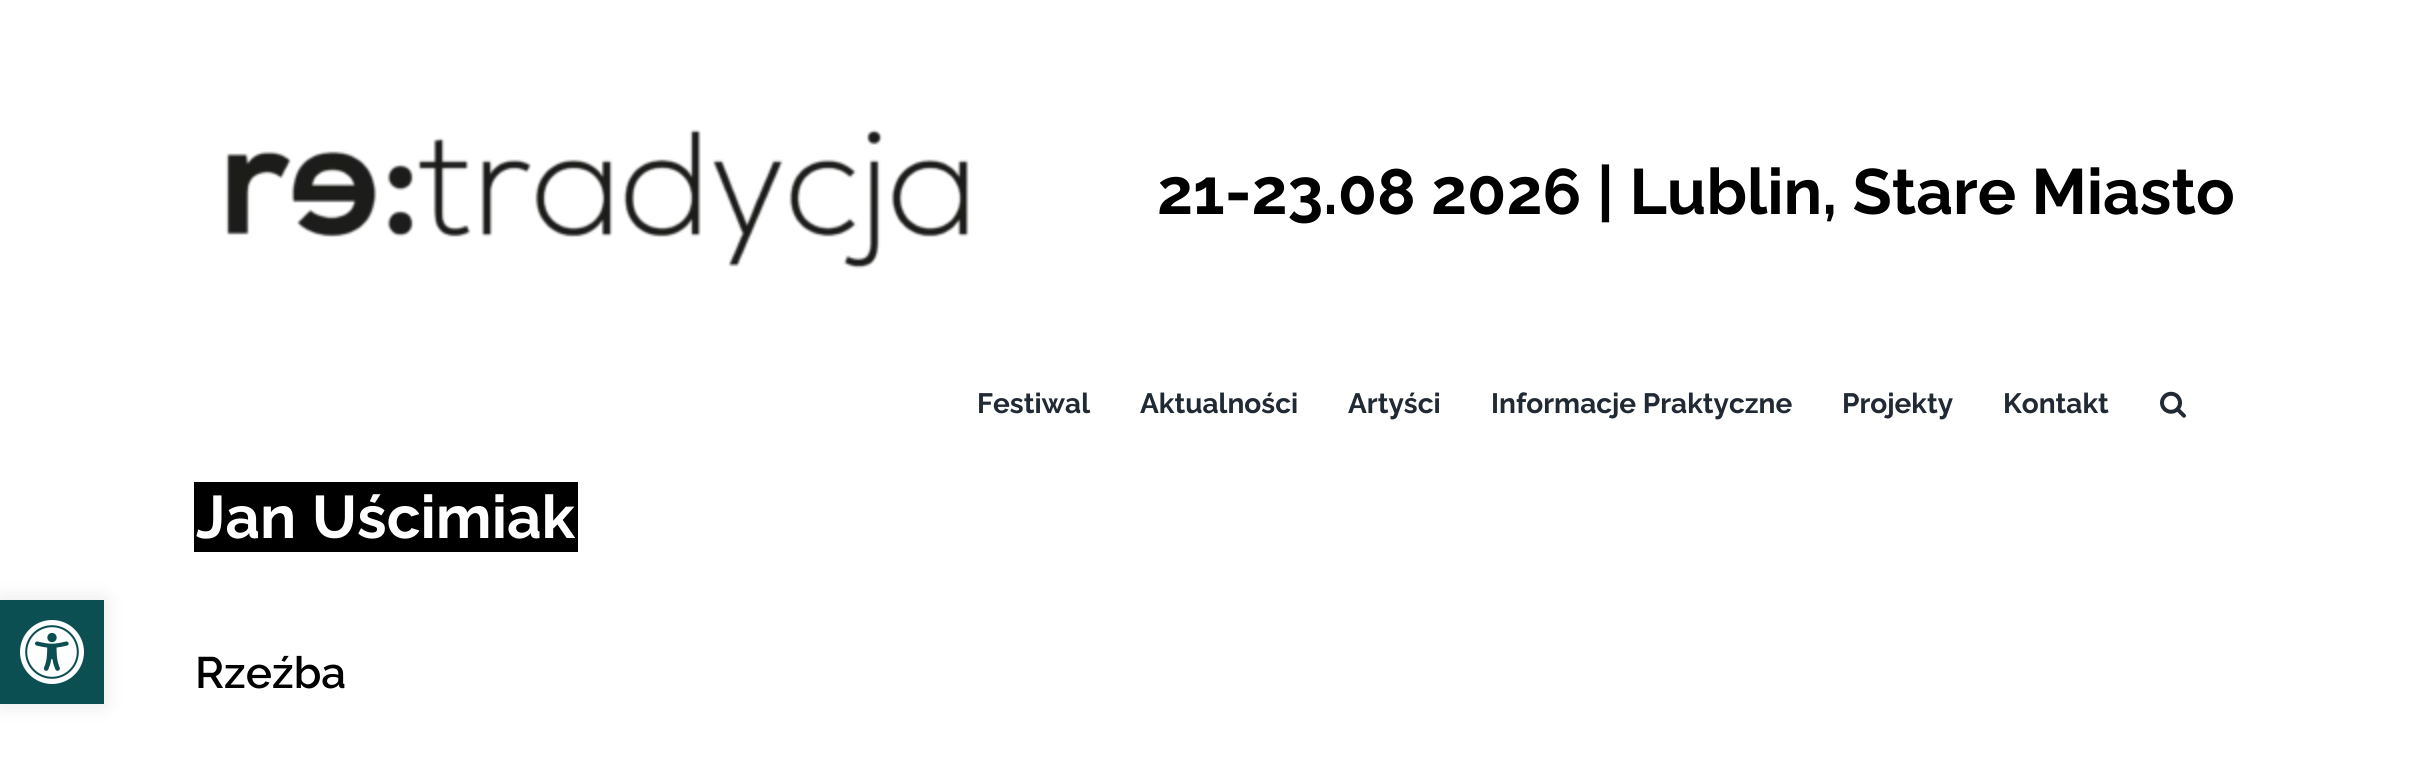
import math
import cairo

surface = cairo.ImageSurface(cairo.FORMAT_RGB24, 2433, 776)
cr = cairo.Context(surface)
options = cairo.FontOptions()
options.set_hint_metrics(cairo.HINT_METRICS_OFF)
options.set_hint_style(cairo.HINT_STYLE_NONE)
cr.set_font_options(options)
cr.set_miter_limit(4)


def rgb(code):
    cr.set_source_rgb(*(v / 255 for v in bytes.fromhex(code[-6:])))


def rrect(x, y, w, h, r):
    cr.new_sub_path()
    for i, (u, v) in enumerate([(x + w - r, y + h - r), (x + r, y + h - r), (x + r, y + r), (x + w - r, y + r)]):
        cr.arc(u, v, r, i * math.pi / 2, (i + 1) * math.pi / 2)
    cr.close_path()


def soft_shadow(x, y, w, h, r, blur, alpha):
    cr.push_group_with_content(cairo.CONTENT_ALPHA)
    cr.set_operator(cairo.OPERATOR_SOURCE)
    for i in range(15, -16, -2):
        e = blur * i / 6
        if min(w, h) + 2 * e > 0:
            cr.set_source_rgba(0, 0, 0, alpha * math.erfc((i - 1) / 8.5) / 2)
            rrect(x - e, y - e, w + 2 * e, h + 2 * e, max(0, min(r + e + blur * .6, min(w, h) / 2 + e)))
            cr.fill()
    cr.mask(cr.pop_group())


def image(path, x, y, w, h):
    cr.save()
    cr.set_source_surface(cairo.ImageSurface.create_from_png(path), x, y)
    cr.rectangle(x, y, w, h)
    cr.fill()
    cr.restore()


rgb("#ffffff")
cr.paint()
rgb("#000000")
soft_shadow(0, 600, 104, 104, 0, 10, 0.1)
rgb("#0b4f52")
cr.rectangle(0, 600, 104, 104)
cr.fill()
image("img/1.png", 20, 620, 64, 64)
image("img/2.png", 225, 129, 744, 140)
image("img/3.png", 2160, 391, 26, 27)
rgb("#000000")
cr.rectangle(194, 482, 384, 70)
cr.fill()
cr.select_font_face("Raleway", cairo.FONT_SLANT_NORMAL, cairo.FONT_WEIGHT_BOLD)
cr.set_font_size(64)
cr.move_to(1157, 214)
cr.show_text("21-23.08 2026 | Lublin, Stare Miasto")
cr.set_font_size(28)
rgb("#212934")
for x, y, s in [
    (977, 413, "Festiwal"),
    (1140, 413, "Aktualności"),
    (1348, 413, "Artyści"),
    (1491, 413, "Informacje Praktyczne"),
    (1842, 413, "Projekty"),
    (2003, 413, "Kontakt"),
]:
    cr.move_to(x, y)
    cr.show_text(s)
cr.set_font_size(60)
rgb("#ffffff")
cr.move_to(196, 538)
cr.show_text("Jan")
cr.move_to(312, 538)
cr.show_text("Uścimiak")
cr.select_font_face("Raleway SemiBold")
cr.set_font_size(44)
rgb("#000000")
cr.move_to(195, 688)
cr.show_text("Rzeźba")
surface.write_to_png("page.png")
